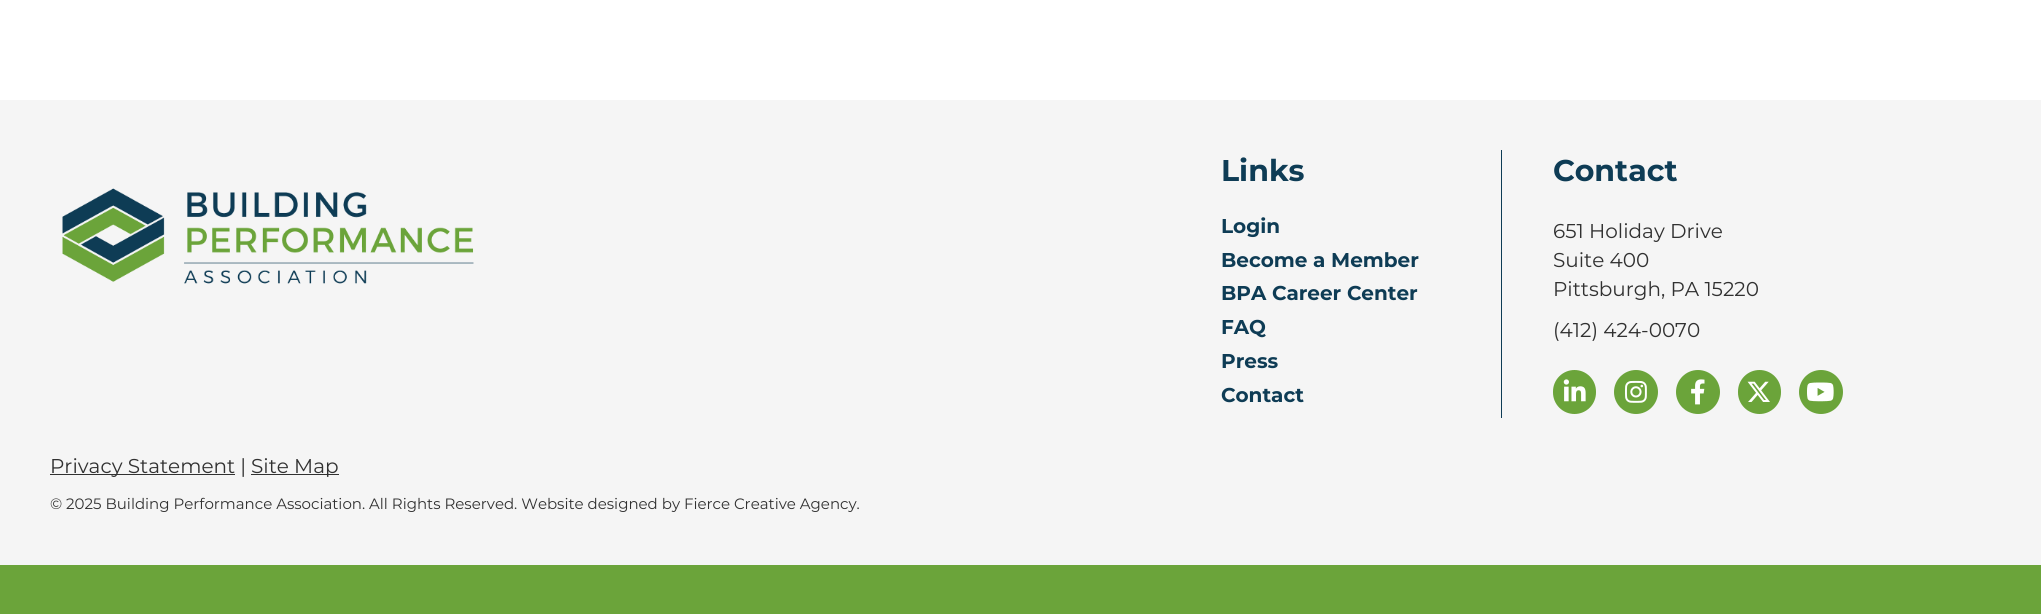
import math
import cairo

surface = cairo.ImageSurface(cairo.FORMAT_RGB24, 2041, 614)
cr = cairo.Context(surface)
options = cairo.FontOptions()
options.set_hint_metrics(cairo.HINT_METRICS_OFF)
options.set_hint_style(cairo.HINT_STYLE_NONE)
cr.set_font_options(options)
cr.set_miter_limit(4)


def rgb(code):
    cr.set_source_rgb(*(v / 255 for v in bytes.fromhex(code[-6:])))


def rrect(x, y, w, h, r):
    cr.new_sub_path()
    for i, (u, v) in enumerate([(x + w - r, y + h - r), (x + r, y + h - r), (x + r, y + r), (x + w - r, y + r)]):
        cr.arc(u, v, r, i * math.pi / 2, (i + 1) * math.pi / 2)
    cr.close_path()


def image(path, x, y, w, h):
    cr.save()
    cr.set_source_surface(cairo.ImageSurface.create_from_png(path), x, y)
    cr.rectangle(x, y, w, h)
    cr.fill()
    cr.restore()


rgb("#ffffff")
cr.paint()
rgb("#f5f5f5")
cr.rectangle(0, 100, 2041, 465)
cr.fill()
rgb("#6ba43a")
cr.rectangle(0, 565, 2041, 49)
cr.fill()
image("img/1.png", 62, 188, 412, 96)
rgb("#0e3c55")
cr.rectangle(1501, 150, 1, 268)
cr.fill()
rgb("#6ba43a")
rrect(1553, 370, 43, 44, 21.5)
cr.fill()
image("img/2.png", 1563, 379, 23, 23)
cr.arc(1636, 392, 22, 0, 2 * math.pi)
cr.fill()
image("img/3.png", 1625, 380, 22, 23)
cr.arc(1698, 392, 22, 0, 2 * math.pi)
cr.fill()
image("img/4.png", 1691, 379, 14, 26)
rrect(1738, 370, 43, 44, 21.5)
cr.fill()
image("img/5.png", 1747, 381, 23, 21)
cr.arc(1821, 392, 22, 0, 2 * math.pi)
cr.fill()
image("img/6.png", 1807, 382, 27, 20)
rgb("#313131")
cr.rectangle(50, 474, 185, 1)
cr.fill()
cr.rectangle(251, 474, 88, 1)
cr.fill()
cr.select_font_face("Montserrat", cairo.FONT_SLANT_NORMAL, cairo.FONT_WEIGHT_BOLD)
cr.set_font_size(30)
rgb("#0e3c55")
cr.move_to(1221, 181)
cr.show_text("Links")
cr.set_font_size(20)
for x, y, s in [
    (1221, 233, "Login"),
    (1221, 267, "Become a Member"),
    (1221, 300, "BPA Career Center"),
    (1221, 334, "FAQ"),
    (1221, 368, "Press"),
    (1221, 402, "Contact"),
]:
    cr.move_to(x, y)
    cr.show_text(s)
cr.set_font_size(30)
cr.move_to(1553, 181)
cr.show_text("Contact")
cr.select_font_face("Montserrat")
cr.set_font_size(20)
rgb("#313131")
for x, y, s in [
    (1553, 238, "651 Holiday Drive"),
    (1553, 267, "Suite 400"),
    (1553, 296, "Pittsburgh, PA 15220"),
    (1553, 337, "(412) 424-0070"),
    (50, 473, "Privacy Statement |"),
    (251, 473, "Site Map"),
]:
    cr.move_to(x, y)
    cr.show_text(s)
cr.set_font_size(15)
cr.move_to(50, 509)
cr.show_text("© 2025 Building Performance Association. All Rights Reserved. Website designed by Fierce Creative Agency.")
surface.write_to_png("page.png")
